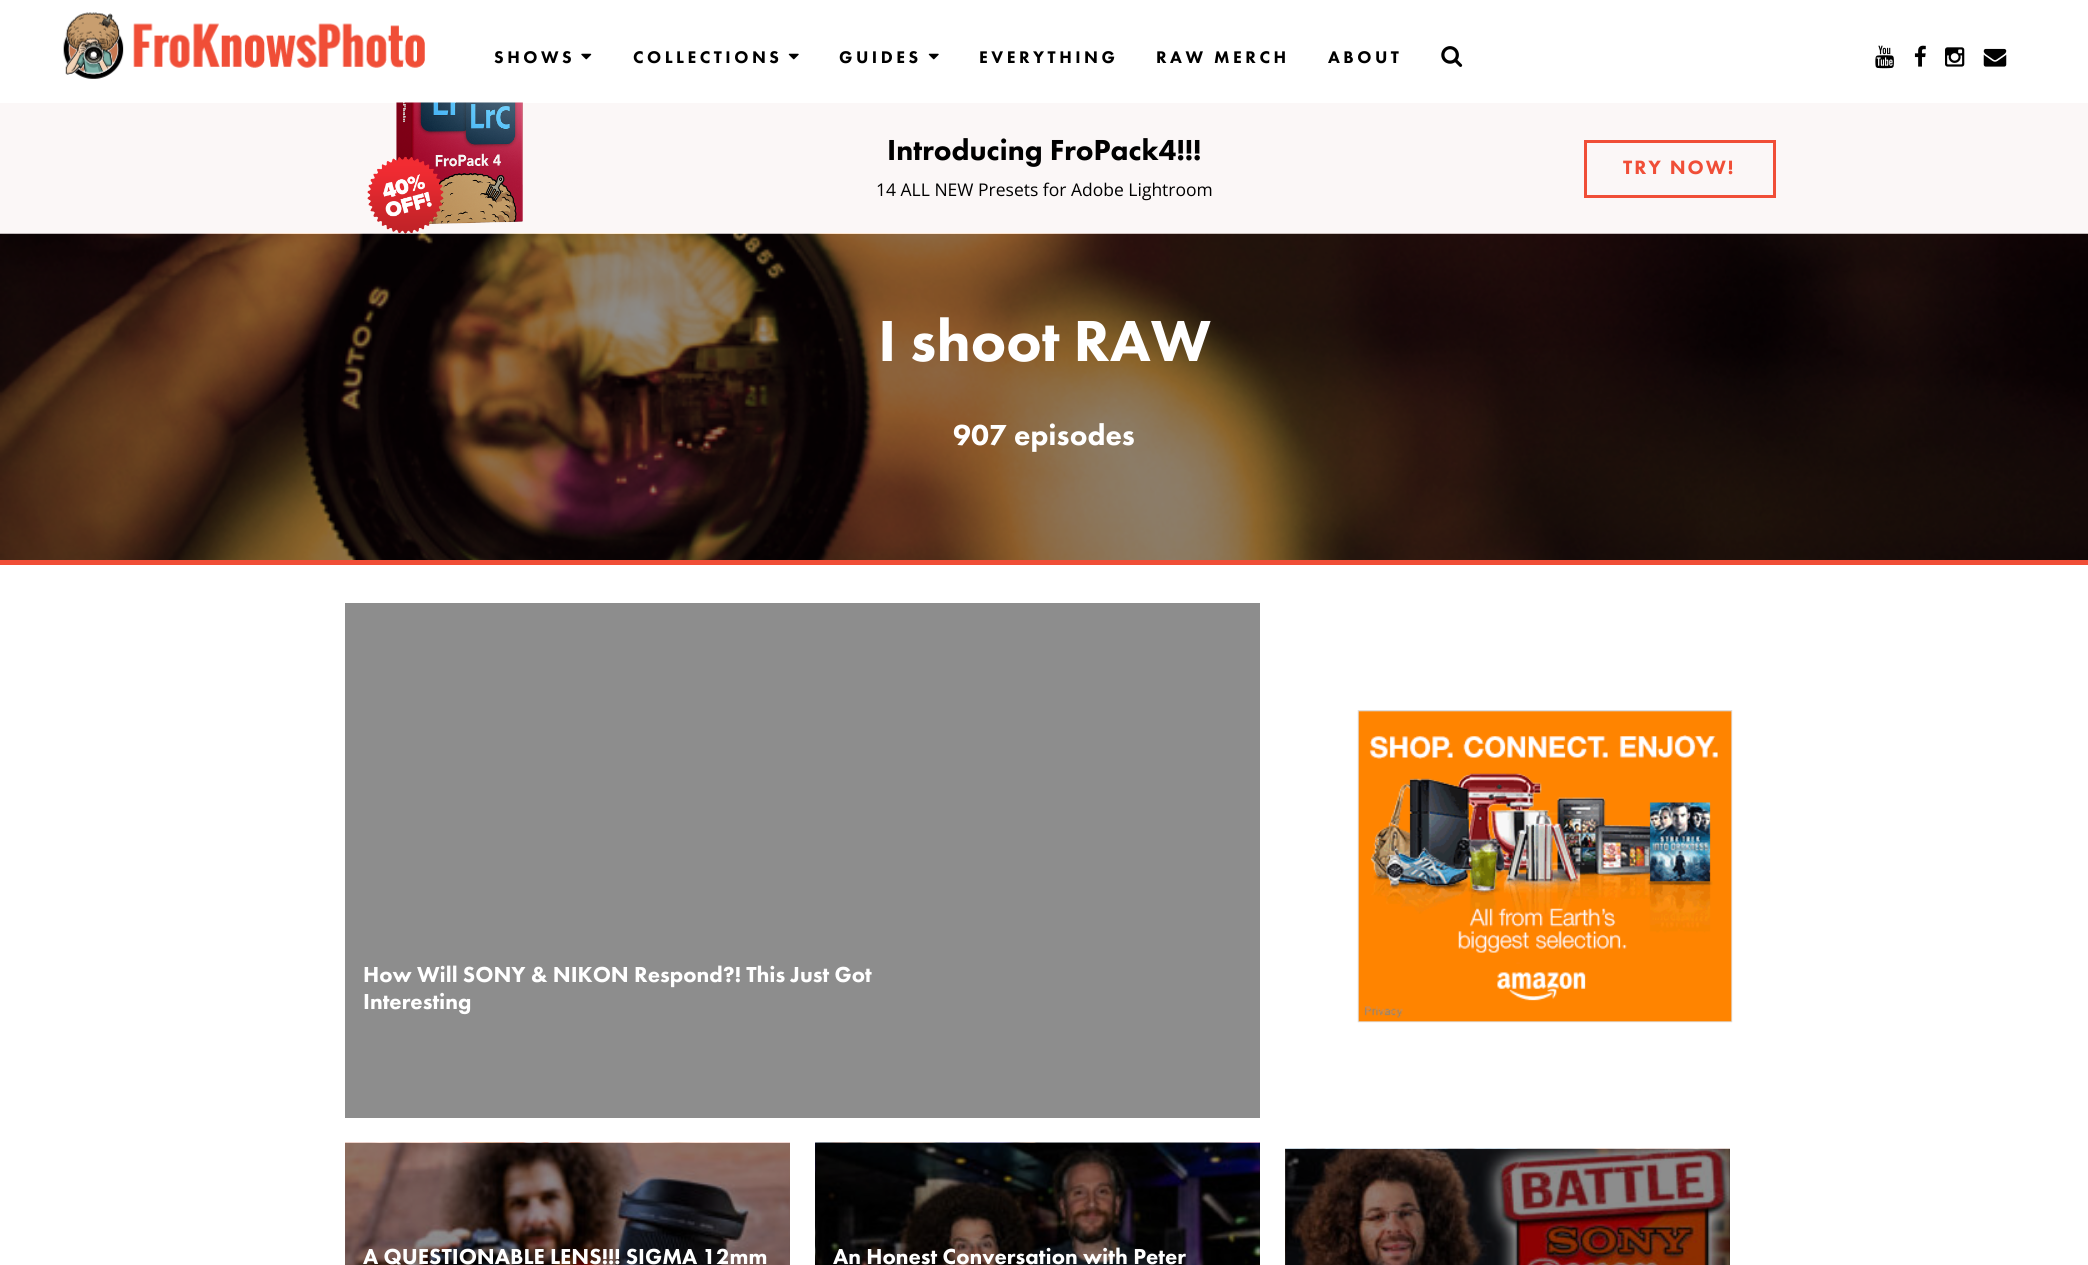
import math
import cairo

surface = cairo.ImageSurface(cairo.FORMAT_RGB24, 2088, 1265)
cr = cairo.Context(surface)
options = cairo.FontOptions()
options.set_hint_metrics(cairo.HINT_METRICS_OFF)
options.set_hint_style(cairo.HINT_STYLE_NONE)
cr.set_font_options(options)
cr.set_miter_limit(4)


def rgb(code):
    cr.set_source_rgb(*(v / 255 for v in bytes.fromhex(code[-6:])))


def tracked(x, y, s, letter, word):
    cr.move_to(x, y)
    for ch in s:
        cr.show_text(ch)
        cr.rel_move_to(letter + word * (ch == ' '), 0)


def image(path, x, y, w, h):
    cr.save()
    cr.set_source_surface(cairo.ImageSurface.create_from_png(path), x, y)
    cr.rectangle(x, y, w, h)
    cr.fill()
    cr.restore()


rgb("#ffffff")
cr.paint()
image("img/1.png", 63, 12, 362, 67)
image("img/2.png", 581, 53, 11, 7)
image("img/3.png", 788, 53, 11, 7)
image("img/3.png", 928, 53, 11, 7)
image("img/4.png", 1441, 46, 22, 21)
image("img/5.png", 1875, 45, 19, 24)
image("img/6.png", 1914, 45, 12, 22)
image("img/7.png", 1945, 47, 20, 20)
image("img/8.png", 1983, 48, 24, 19)
rgb("#fbf7f7")
cr.rectangle(0, 103, 2088, 131)
cr.fill()
image("img/9.png", 367, 102, 156, 132)
cr.rectangle(1585.5, 141.5, 189, 55)
rgb("#f04e37")
cr.set_line_width(3)
cr.stroke()
image("img/10.png", 0, 233, 2088, 327)
cr.rectangle(0, 560, 2088, 5)
cr.fill()
rgb("#8d8d8d")
cr.rectangle(345, 603, 915, 515)
cr.fill()
image("img/11.png", 1357, 710, 376, 313)
image("img/12.png", 345, 1142, 445, 123)
image("img/13.png", 815, 1142, 445, 123)
image("img/14.png", 1285, 1148, 445, 117)
cr.select_font_face("Futura PT Black")
cr.set_font_size(17.5)
rgb("#000000")
for x, y, s in [
    (494, 63, "SHOWS"),
    (633, 63, "COLLECTIONS"),
    (839, 63, "GUIDES"),
    (979, 63, "EVERYTHING"),
    (1156, 63, "RAW MERCH"),
    (1328, 63, "ABOUT"),
]:
    tracked(x, y, s, 3.5, 0)
cr.set_font_size(30)
cr.move_to(887, 160)
cr.show_text("Introducing FroPack4!!!")
cr.select_font_face("Open Sans")
cr.set_font_size(17.5)
cr.move_to(876, 196)
cr.show_text("14 ALL NEW Presets for Adobe Lightroom")
cr.select_font_face("Futura PT Black")
cr.set_font_size(20)
rgb("#f04e37")
tracked(1623, 174, "TRY NOW!", 2, 0)
cr.set_font_size(60)
rgb("#ffffff")
cr.move_to(878, 361)
cr.show_text("I shoot RAW")
cr.set_font_size(30)
cr.move_to(953, 445)
cr.show_text("907 episodes")
cr.set_font_size(22.5)
for x, y, s in [
    (363, 982, "How Will SONY & NIKON Respond?! This Just Got"),
    (363, 1009, "Interesting"),
    (363, 1264, "A QUESTIONABLE LENS!!! SIGMA 12mm"),
    (833, 1264, "An Honest Conversation with Peter"),
]:
    cr.move_to(x, y)
    cr.show_text(s)
surface.write_to_png("page.png")
